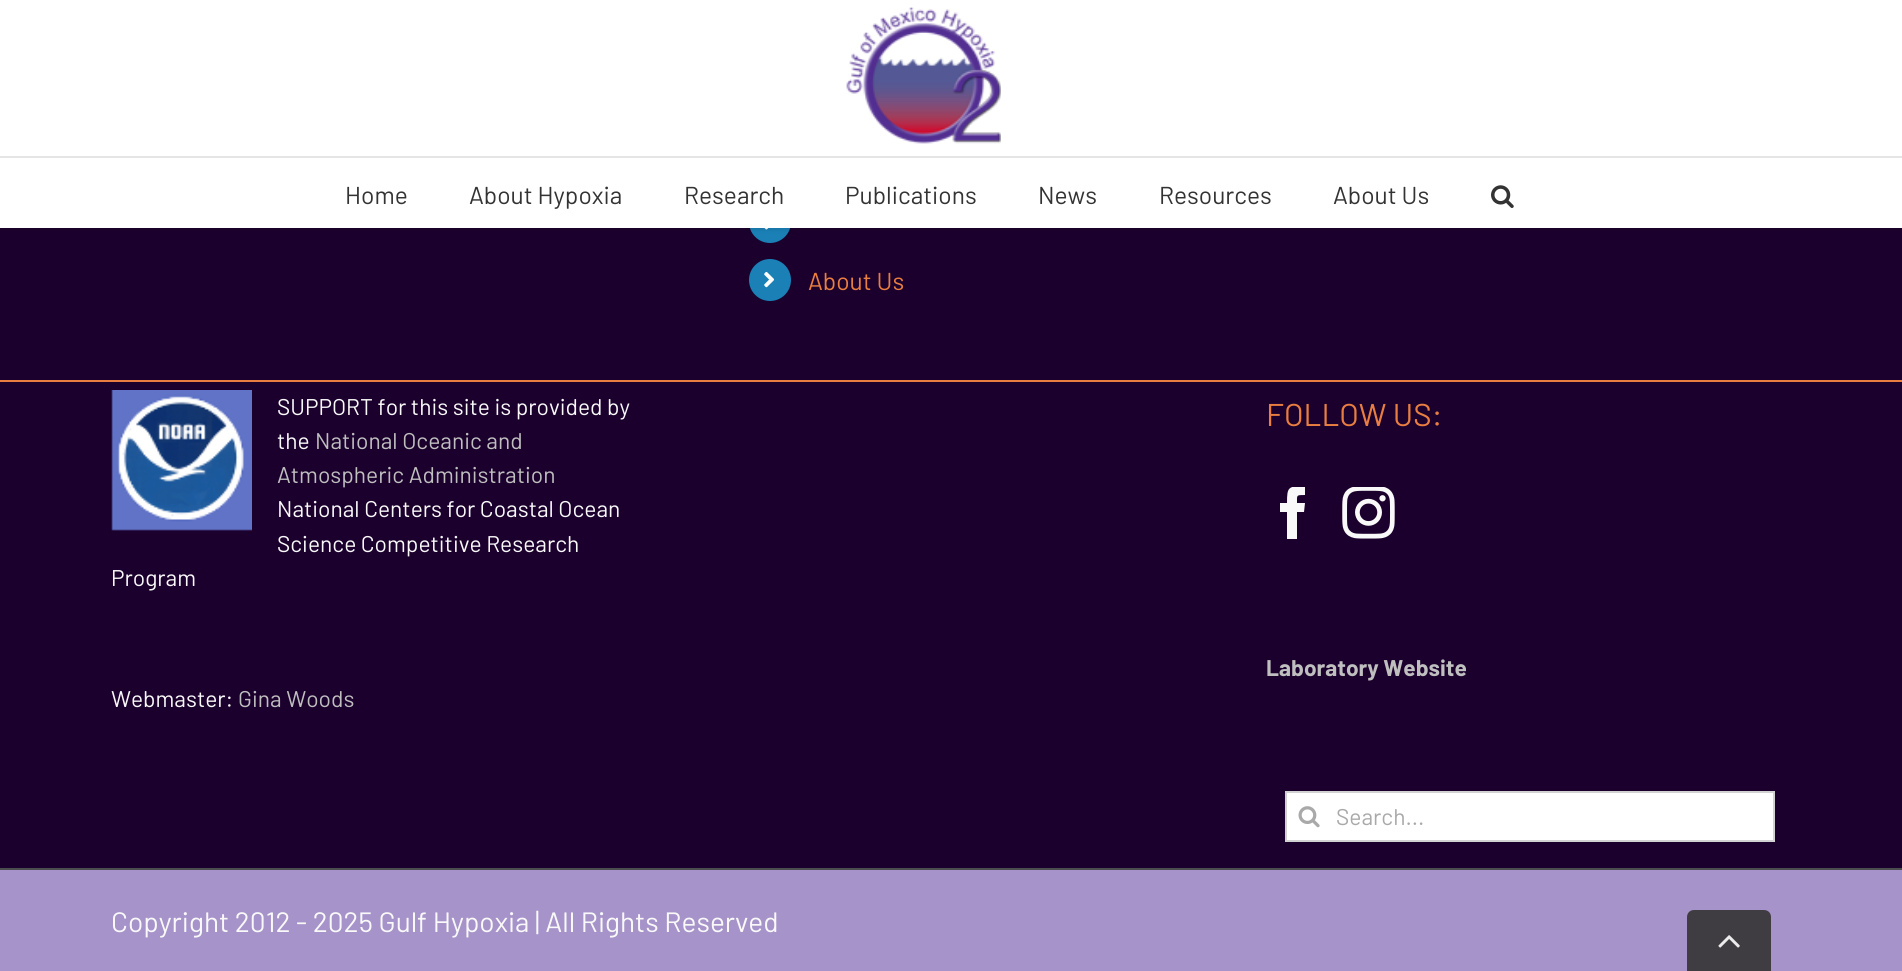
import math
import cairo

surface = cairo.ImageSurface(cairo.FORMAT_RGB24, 1902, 971)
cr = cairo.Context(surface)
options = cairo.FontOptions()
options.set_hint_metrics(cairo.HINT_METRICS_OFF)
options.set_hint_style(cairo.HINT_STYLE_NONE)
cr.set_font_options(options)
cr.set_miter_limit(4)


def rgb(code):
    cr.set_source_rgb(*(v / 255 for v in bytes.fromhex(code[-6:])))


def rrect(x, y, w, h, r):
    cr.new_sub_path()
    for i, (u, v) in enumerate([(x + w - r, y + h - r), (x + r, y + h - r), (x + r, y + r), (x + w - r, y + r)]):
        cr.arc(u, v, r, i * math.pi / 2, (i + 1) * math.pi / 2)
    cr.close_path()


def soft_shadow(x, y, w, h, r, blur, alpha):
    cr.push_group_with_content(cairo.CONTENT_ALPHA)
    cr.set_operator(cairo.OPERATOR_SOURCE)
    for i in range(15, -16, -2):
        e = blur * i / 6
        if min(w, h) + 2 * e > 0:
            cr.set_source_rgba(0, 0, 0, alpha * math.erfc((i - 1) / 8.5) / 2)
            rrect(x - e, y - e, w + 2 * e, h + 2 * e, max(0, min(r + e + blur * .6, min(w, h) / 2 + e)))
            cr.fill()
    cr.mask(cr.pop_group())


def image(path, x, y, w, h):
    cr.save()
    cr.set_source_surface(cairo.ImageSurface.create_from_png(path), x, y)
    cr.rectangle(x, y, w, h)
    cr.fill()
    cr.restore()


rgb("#1b002d")
cr.paint()
rgb("#1a80b6")
cr.arc(770, 222, 21, 0, 2 * math.pi)
cr.fill()
image("img/3.png", 764, 228, 5, 2)
rgb("#000000")
soft_shadow(0, 2, 1902, 227, 0, 2.5, 0.12)
rgb("#ffffff")
cr.rectangle(0, 0, 1902, 156)
cr.fill()
rgb("#e5e5e5")
cr.rectangle(0, 156, 1902, 2)
cr.fill()
image("img/1.png", 846, 7, 155, 137)
rgb("#ffffff")
cr.rectangle(0, 158, 1902, 70)
cr.fill()
image("img/2.png", 1491, 185, 23, 23)
rgb("#1a80b6")
cr.arc(770, 280, 21, 0, 2 * math.pi)
cr.fill()
image("img/4.png", 764, 271, 10, 17)
rgb("#e87e40")
cr.rectangle(0, 380, 1902, 2)
cr.fill()
image("img/5.png", 111, 390, 141, 141)
cr.save()
cr.rectangle(1267, 487, 525, 77)
cr.clip()
rgb("#f9f9f9")
cr.new_path()
cr.move_to(1297, 539)
cr.line_to(1287, 539)
cr.line_to(1287, 512)
cr.line_to(1280, 512)
cr.line_to(1280, 503)
cr.line_to(1287, 503)
cr.curve_to(1287, 487, 1288, 486, 1305, 486)
cr.line_to(1305, 495)
cr.curve_to(1296, 495, 1297, 495, 1297, 503)
cr.line_to(1305, 503)
cr.line_to(1304, 512)
cr.line_to(1297, 512)
cr.close_path()
cr.fill()
cr.restore()
image("img/6.png", 1342, 487, 53, 52)
rgb("#ffffff")
cr.rectangle(1286, 792, 488, 49)
cr.fill_preserve()
rgb("#d2d2d2")
cr.stroke()
image("img/7.png", 1298, 806, 22, 22)
rgb("#a693c9")
cr.rectangle(0, 870, 1902, 101)
cr.fill()
rgb("#4b4c4d")
cr.rectangle(0, 868, 1902, 2)
cr.fill()
rgb("#3f3d42")
cr.new_path()
cr.move_to(1694, 910)
cr.line_to(1764, 910)
cr.curve_to(1768, 910, 1771, 913, 1771, 917)
cr.line_to(1771, 971)
cr.line_to(1687, 971)
cr.line_to(1687, 917)
cr.curve_to(1687, 913, 1690, 910, 1694, 910)
cr.close_path()
cr.fill()
image("img/8.png", 1718, 935, 22, 13)
cr.select_font_face("Barlow")
cr.set_font_size(24.5)
rgb("#333333")
for x, y, s in [
    (345, 204, "Home"),
    (469, 204, "About Hypoxia"),
    (684, 204, "Research"),
    (845, 204, "Publications"),
    (1038, 204, "News"),
    (1159, 204, "Resources"),
    (1333, 204, "About Us"),
]:
    cr.move_to(x, y)
    cr.show_text(s)
rgb("#e87e40")
cr.move_to(808, 290)
cr.show_text("About Us")
cr.set_font_size(22.75)
rgb("#f9f9f9")
cr.move_to(277, 415)
cr.show_text("SUPPORT for this site is provided by")
cr.move_to(277, 449)
cr.show_text("the")
rgb("#bfbfbf")
cr.move_to(315, 449)
cr.show_text("National Oceanic and")
cr.move_to(277, 483)
cr.show_text("Atmospheric Administration")
rgb("#f9f9f9")
for x, y, s in [
    (277, 517, "National Centers for Coastal Ocean"),
    (277, 552, "Science Competitive Research"),
    (111, 586, "Program"),
    (111, 707, "Webmaster:"),
]:
    cr.move_to(x, y)
    cr.show_text(s)
rgb("#bfbfbf")
cr.move_to(238, 707)
cr.show_text("Gina Woods")
cr.set_font_size(31.5)
rgb("#e87e40")
cr.move_to(1266, 426)
cr.show_text("FOLLOW US:")
cr.select_font_face("Barlow", cairo.FONT_SLANT_NORMAL, cairo.FONT_WEIGHT_BOLD)
cr.set_font_size(22.75)
rgb("#bfbfbf")
cr.move_to(1266, 676)
cr.show_text("Laboratory Website")
cr.select_font_face("Barlow")
rgb("#aaa9a9")
cr.move_to(1336, 825)
cr.show_text("Search...")
cr.set_font_size(28)
rgb("#f9f9f9")
cr.move_to(111, 932)
cr.show_text("Copyright 2012 - 2025 Gulf Hypoxia | All Rights Reserved")
surface.write_to_png("page.png")
